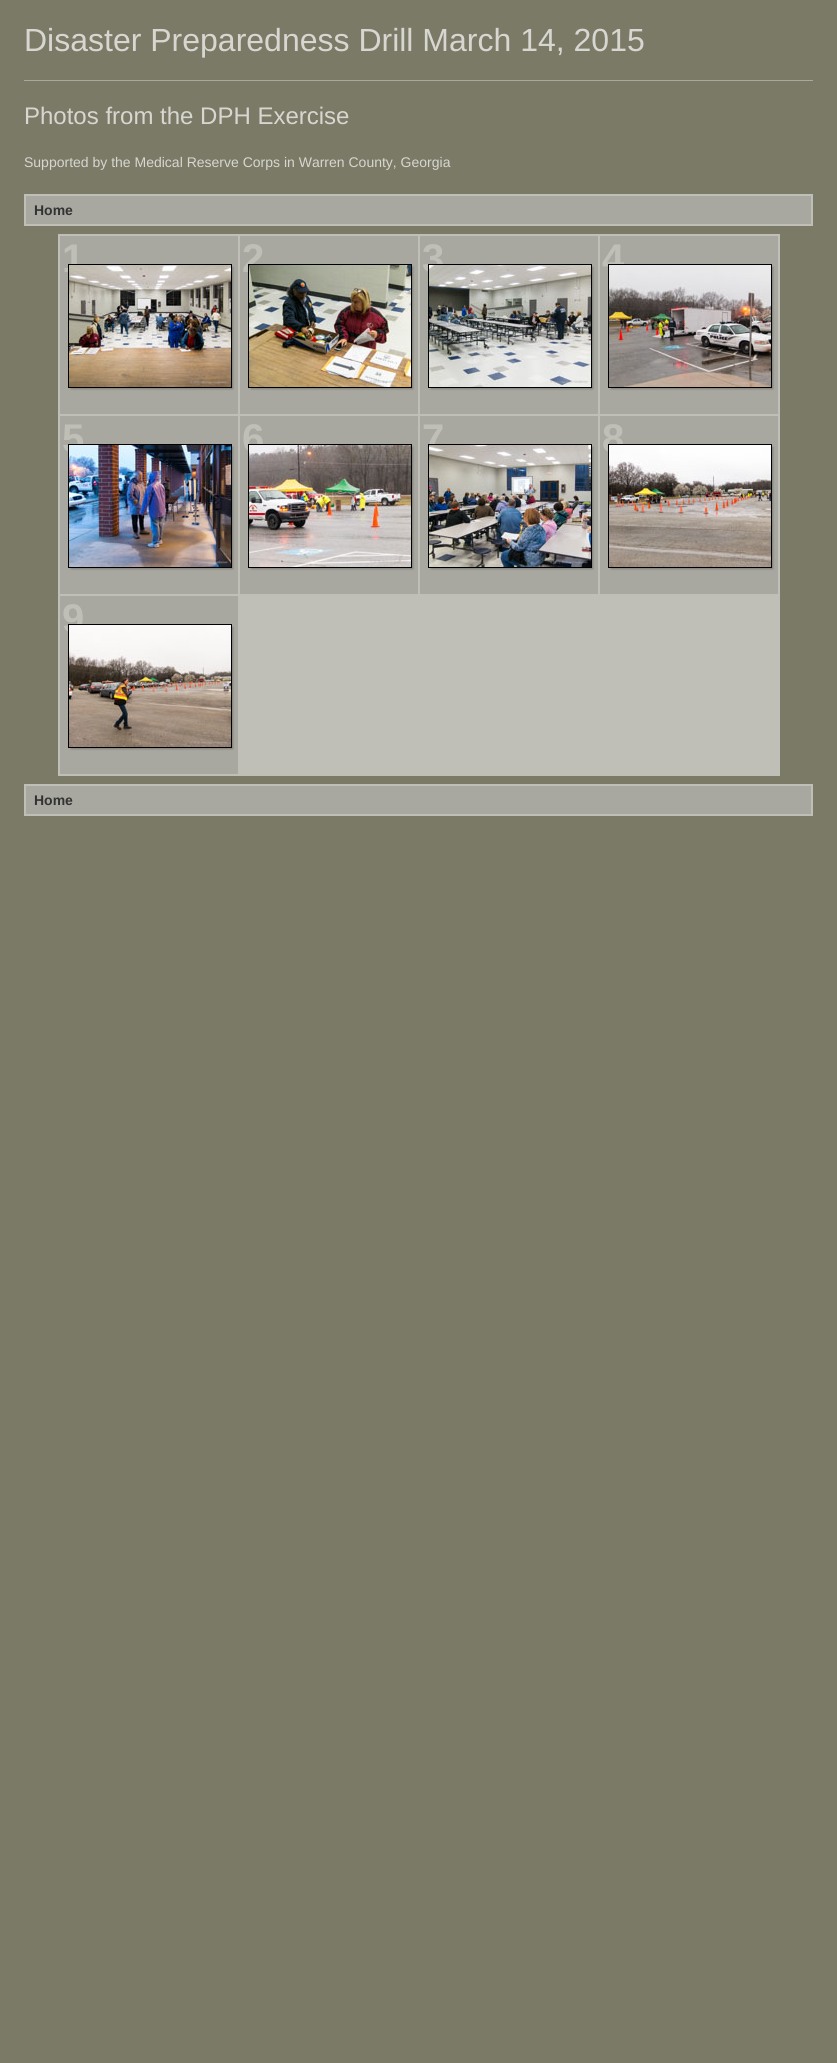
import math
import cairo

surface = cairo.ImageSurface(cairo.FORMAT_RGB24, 837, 2063)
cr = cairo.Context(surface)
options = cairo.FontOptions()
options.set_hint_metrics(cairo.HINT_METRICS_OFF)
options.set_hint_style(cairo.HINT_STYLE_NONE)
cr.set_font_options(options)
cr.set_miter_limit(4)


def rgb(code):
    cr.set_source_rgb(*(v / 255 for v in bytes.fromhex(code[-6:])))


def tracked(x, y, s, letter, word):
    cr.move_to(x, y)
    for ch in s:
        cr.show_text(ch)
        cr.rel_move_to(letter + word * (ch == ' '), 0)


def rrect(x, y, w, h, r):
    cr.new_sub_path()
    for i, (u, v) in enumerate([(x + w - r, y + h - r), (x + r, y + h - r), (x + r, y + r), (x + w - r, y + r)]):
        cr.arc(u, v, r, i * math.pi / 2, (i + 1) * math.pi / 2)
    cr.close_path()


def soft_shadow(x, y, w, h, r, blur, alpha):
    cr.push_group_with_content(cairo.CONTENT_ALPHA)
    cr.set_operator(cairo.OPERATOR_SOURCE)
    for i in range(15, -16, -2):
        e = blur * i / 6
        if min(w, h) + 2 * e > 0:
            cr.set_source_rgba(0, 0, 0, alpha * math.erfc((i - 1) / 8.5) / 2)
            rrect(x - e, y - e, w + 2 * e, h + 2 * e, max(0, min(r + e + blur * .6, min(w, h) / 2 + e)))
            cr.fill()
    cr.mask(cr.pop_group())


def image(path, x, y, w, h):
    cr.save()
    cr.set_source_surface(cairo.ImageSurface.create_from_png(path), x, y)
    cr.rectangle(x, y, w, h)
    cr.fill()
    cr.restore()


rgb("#7b7a66")
cr.paint()
rgb("#a8a8a0")
cr.rectangle(24, 80, 789, 1)
cr.fill()
cr.rectangle(25, 195, 787, 30)
cr.fill_preserve()
rgb("#bfbfb7")
cr.stroke()
for x, y, w, h, color in [
    (58, 234, 722, 542, "#bfbfb7"),
    (60, 236, 178, 178, "#a8a8a0"),
    (240, 236, 178, 178, "#a8a8a0"),
    (420, 236, 178, 178, "#a8a8a0"),
    (600, 236, 178, 178, "#a8a8a0"),
    (60, 416, 178, 178, "#a8a8a0"),
    (240, 416, 178, 178, "#a8a8a0"),
    (420, 416, 178, 178, "#a8a8a0"),
    (600, 416, 178, 178, "#a8a8a0"),
    (60, 596, 178, 178, "#a8a8a0"),
]:
    rgb(color)
    cr.rectangle(x, y, w, h)
    cr.fill()
cr.rectangle(25, 785, 787, 30)
cr.fill_preserve()
rgb("#bfbfb7")
cr.stroke()
cr.select_font_face("Liberation Sans")
cr.set_font_size(32)
rgb("#d7d6d1")
cr.move_to(24, 51)
cr.show_text("Disaster Preparedness Drill March 14, 2015")
cr.set_font_size(24)
cr.move_to(24, 124)
cr.show_text("Photos from the DPH Exercise")
cr.set_font_size(14)
cr.move_to(24, 167)
cr.show_text("Supported by the Medical Reserve Corps in Warren County, Georgia")
cr.select_font_face("Liberation Sans", cairo.FONT_SLANT_NORMAL, cairo.FONT_WEIGHT_BOLD)
rgb("#333333")
cr.move_to(34, 215)
cr.show_text("Home")
cr.set_font_size(40)
rgb("#bfbfb7")
tracked(62, 272, "1", -1, 0)
cr.rectangle(68.5, 264.5, 163, 123)
rgb("#000000")
cr.set_line_width(1)
cr.stroke()
rgb("#000000")
soft_shadow(71, 267, 162, 122, 0, 1, 0.25)
image("img/1.png", 69, 265, 162, 122)
rgb("#bfbfb7")
tracked(242, 272, "2", -1, 0)
cr.rectangle(248.5, 264.5, 163, 123)
rgb("#000000")
cr.stroke()
rgb("#000000")
soft_shadow(251, 267, 162, 122, 0, 1, 0.25)
image("img/2.png", 249, 265, 162, 122)
rgb("#bfbfb7")
tracked(422, 272, "3", -1, 0)
cr.rectangle(428.5, 264.5, 163, 123)
rgb("#000000")
cr.stroke()
rgb("#000000")
soft_shadow(431, 267, 162, 122, 0, 1, 0.25)
image("img/3.png", 429, 265, 162, 122)
rgb("#bfbfb7")
tracked(602, 272, "4", -1, 0)
cr.rectangle(608.5, 264.5, 163, 123)
rgb("#000000")
cr.stroke()
rgb("#000000")
soft_shadow(611, 267, 162, 122, 0, 1, 0.25)
image("img/4.png", 609, 265, 162, 122)
rgb("#bfbfb7")
tracked(62, 452, "5", -1, 0)
cr.rectangle(68.5, 444.5, 163, 123)
rgb("#000000")
cr.stroke()
rgb("#000000")
soft_shadow(71, 447, 162, 122, 0, 1, 0.25)
image("img/5.png", 69, 445, 162, 122)
rgb("#bfbfb7")
tracked(242, 452, "6", -1, 0)
cr.rectangle(248.5, 444.5, 163, 123)
rgb("#000000")
cr.stroke()
rgb("#000000")
soft_shadow(251, 447, 162, 122, 0, 1, 0.25)
image("img/6.png", 249, 445, 162, 122)
rgb("#bfbfb7")
tracked(422, 452, "7", -1, 0)
cr.rectangle(428.5, 444.5, 163, 123)
rgb("#000000")
cr.stroke()
rgb("#000000")
soft_shadow(431, 447, 162, 122, 0, 1, 0.25)
image("img/7.png", 429, 445, 162, 122)
rgb("#bfbfb7")
tracked(602, 452, "8", -1, 0)
cr.rectangle(608.5, 444.5, 163, 123)
rgb("#000000")
cr.stroke()
rgb("#000000")
soft_shadow(611, 447, 162, 122, 0, 1, 0.25)
image("img/8.png", 609, 445, 162, 122)
rgb("#bfbfb7")
tracked(62, 632, "9", -1, 0)
cr.rectangle(68.5, 624.5, 163, 123)
rgb("#000000")
cr.stroke()
rgb("#000000")
soft_shadow(71, 627, 162, 122, 0, 1, 0.25)
image("img/9.png", 69, 625, 162, 122)
cr.set_font_size(14)
rgb("#333333")
cr.move_to(34, 805)
cr.show_text("Home")
surface.write_to_png("page.png")
